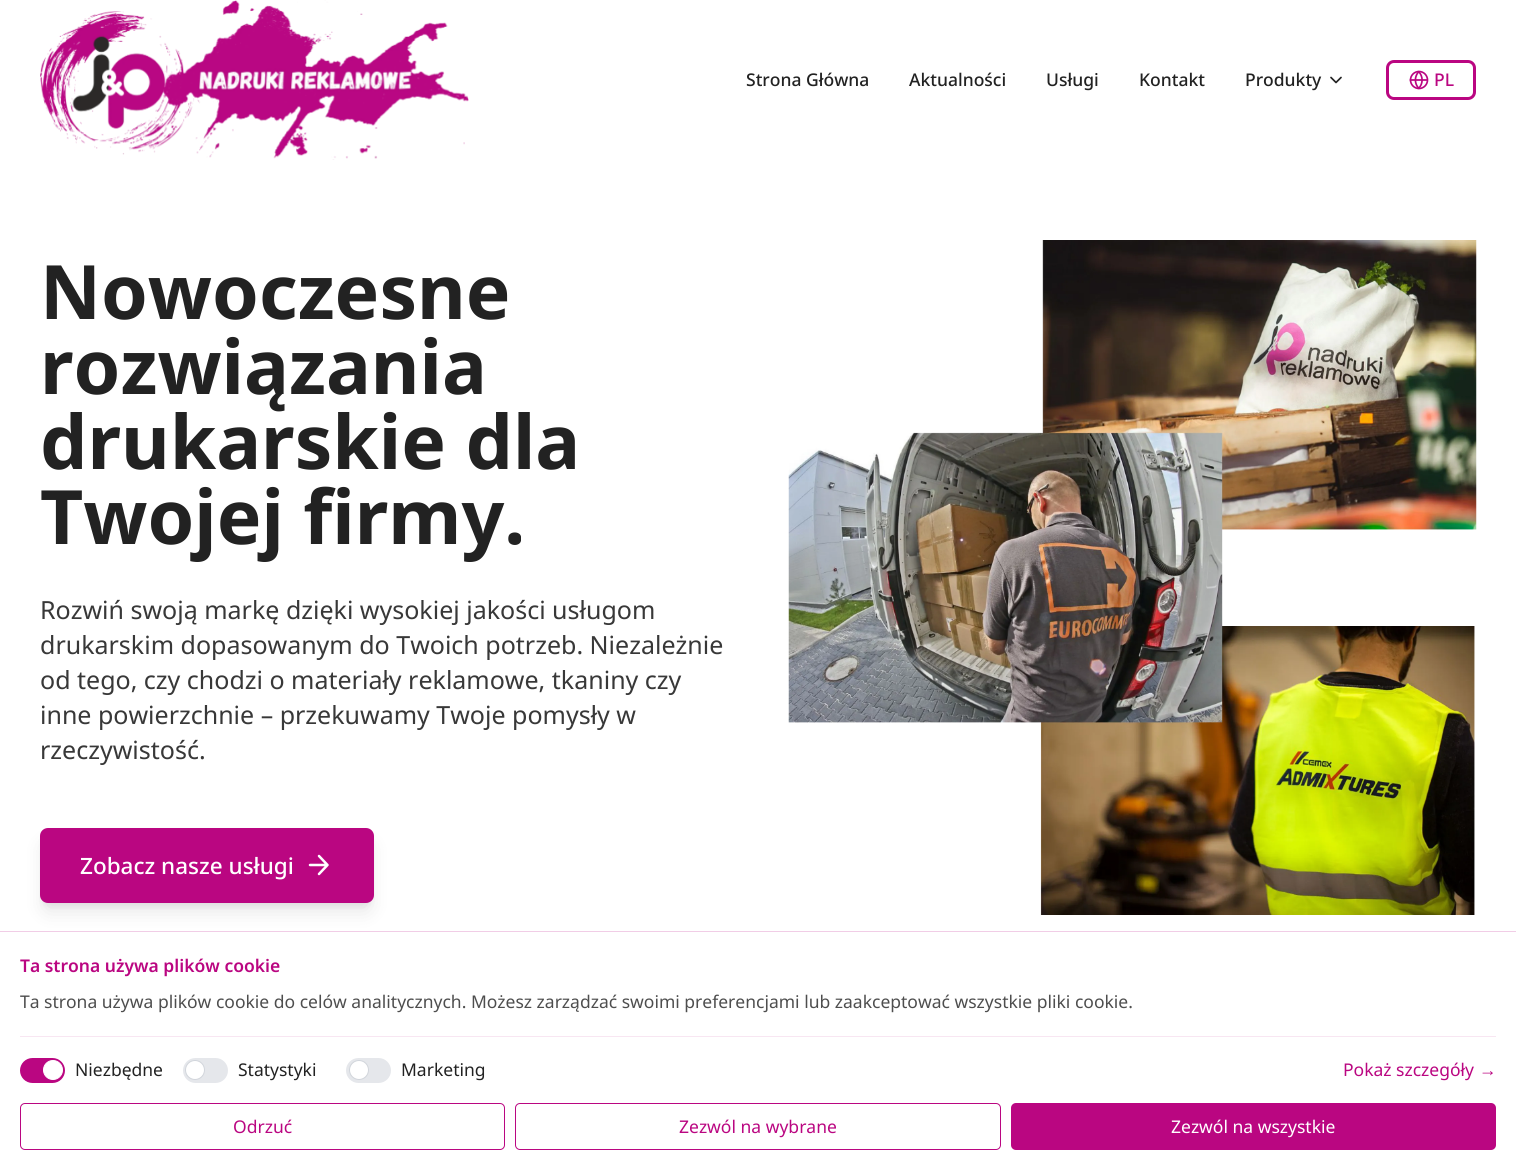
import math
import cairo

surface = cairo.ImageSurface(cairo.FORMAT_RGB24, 1516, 1170)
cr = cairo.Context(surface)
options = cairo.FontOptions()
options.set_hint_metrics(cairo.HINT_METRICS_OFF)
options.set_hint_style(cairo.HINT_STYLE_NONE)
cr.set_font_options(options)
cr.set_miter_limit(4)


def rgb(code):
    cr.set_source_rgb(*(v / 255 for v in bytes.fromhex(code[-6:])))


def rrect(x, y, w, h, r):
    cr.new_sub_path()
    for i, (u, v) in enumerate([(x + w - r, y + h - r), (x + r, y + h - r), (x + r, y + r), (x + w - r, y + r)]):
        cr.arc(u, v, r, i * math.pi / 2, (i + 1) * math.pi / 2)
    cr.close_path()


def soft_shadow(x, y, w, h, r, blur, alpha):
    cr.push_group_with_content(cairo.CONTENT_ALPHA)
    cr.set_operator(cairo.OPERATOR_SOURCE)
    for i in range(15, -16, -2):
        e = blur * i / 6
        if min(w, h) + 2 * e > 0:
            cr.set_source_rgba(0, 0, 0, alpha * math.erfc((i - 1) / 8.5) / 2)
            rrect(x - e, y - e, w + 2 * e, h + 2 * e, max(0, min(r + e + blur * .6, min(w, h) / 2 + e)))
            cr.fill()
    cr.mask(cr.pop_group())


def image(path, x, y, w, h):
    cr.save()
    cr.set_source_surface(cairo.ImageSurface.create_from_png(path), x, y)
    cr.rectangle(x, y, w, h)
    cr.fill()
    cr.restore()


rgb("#ffffff")
cr.paint()
image("img/1.png", 40, 0, 429, 160)
cr.new_path()
cr.move_to(1331, 77.5)
cr.line_to(1336, 82.5)
cr.line_to(1341, 77.5)
rgb("#222222")
cr.set_line_width(1.7)
cr.set_line_cap(cairo.LINE_CAP_ROUND)
cr.set_line_join(cairo.LINE_JOIN_ROUND)
cr.stroke()
rrect(1387.5, 61.5, 87, 37, 6.5)
rgb("#ba0681")
cr.set_line_width(3)
cr.set_line_cap(cairo.LINE_CAP_BUTT)
cr.set_line_join(cairo.LINE_JOIN_MITER)
cr.stroke()
image("img/2.png", 1409, 70, 20, 20)
rgb("#000000")
soft_shadow(45, 838, 324, 65, 2.5, 4, 0.1)
soft_shadow(44, 844, 326, 67, 4, 9.5, 0.1)
rgb("#ba0681")
rrect(40, 828, 334, 75, 8)
cr.fill()
cr.new_path()
cr.move_to(310, 865)
cr.line_to(327.5, 865)
cr.move_to(319, 856)
cr.line_to(327.5, 865)
cr.line_to(319, 874)
rgb("#ffffff")
cr.set_line_width(2.5)
cr.set_line_cap(cairo.LINE_CAP_ROUND)
cr.set_line_join(cairo.LINE_JOIN_ROUND)
cr.stroke()
image("img/3.png", 788, 240, 689, 675)
rgb("#f1cde6")
cr.rectangle(0, 931, 1516, 1)
cr.fill()
rgb("#f8e6f2")
cr.rectangle(20, 1036, 1476, 1)
cr.fill()
rgb("#ba0681")
rrect(20, 1058, 45, 25, 12.5)
cr.fill()
rgb("#ffffff")
cr.arc(53, 1070, 9.5, 0, 2 * math.pi)
cr.fill_preserve()
cr.set_line_width(1)
cr.set_line_cap(cairo.LINE_CAP_BUTT)
cr.set_line_join(cairo.LINE_JOIN_MITER)
cr.stroke()
rgb("#e5e7eb")
rrect(183, 1058, 45, 25, 12.5)
cr.fill()
rgb("#ffffff")
cr.arc(195, 1070, 9.5, 0, 2 * math.pi)
cr.fill_preserve()
rgb("#d1d5db")
cr.stroke()
rgb("#e5e7eb")
rrect(346, 1058, 45, 25, 12.5)
cr.fill()
rgb("#ffffff")
cr.arc(359, 1070, 9.5, 0, 2 * math.pi)
cr.fill_preserve()
rgb("#d1d5db")
cr.stroke()
rrect(20.5, 1103.5, 484, 46, 4.5)
rgb("#ba0681")
cr.stroke()
rrect(515.5, 1103.5, 485, 46, 4.5)
cr.stroke()
rrect(1011, 1103, 485, 47, 5)
cr.fill()
cr.select_font_face("Noto Sans Medium")
cr.set_font_size(17.5)
rgb("#222222")
for x, y, s in [
    (746, 86, "Strona Główna"),
    (909, 86, "Aktualności"),
    (1046, 86, "Usługi"),
    (1139, 86, "Kontakt"),
    (1245, 86, "Produkty"),
]:
    cr.move_to(x, y)
    cr.show_text(s)
rgb("#ba0681")
cr.move_to(1434, 86)
cr.show_text("PL")
cr.select_font_face("Noto Sans", cairo.FONT_SLANT_NORMAL, cairo.FONT_WEIGHT_BOLD)
cr.set_font_size(75)
rgb("#222222")
for x, y, s in [
    (40, 319, "Nowoczesne"),
    (40, 394, "rozwiązania"),
    (40, 469, "drukarskie dla"),
    (40, 544, "Twojej firmy."),
]:
    cr.move_to(x, y)
    cr.show_text(s)
cr.select_font_face("Noto Sans")
cr.set_font_size(25)
rgb("#383838")
for x, y, s in [
    (40, 619, "Rozwiń swoją markę dzięki wysokiej jakości usługom"),
    (40, 654, "drukarskim dopasowanym do Twoich potrzeb. Niezależnie"),
    (40, 689, "od tego, czy chodzi o materiały reklamowe, tkaniny czy"),
    (40, 724, "inne powierzchnie – przekuwamy Twoje pomysły w"),
    (40, 759, "rzeczywistość."),
]:
    cr.move_to(x, y)
    cr.show_text(s)
cr.select_font_face("Noto Sans Medium")
cr.set_font_size(22.5)
rgb("#ffffff")
cr.move_to(80, 874)
cr.show_text("Zobacz nasze usługi")
cr.select_font_face("Noto Sans SemiBold")
cr.set_font_size(17.5)
rgb("#ba0681")
cr.move_to(20, 972)
cr.show_text("Ta strona używa plików cookie")
cr.select_font_face("Noto Sans")
rgb("#4e4e4e")
cr.move_to(20, 1008)
cr.show_text("Ta strona używa plików cookie do celów analitycznych. Możesz zarządzać swoimi preferencjami lub zaakceptować wszystkie pliki cookie.")
rgb("#222222")
for x, y, s in [
    (75, 1076, "Niezbędne"),
    (238, 1076, "Statystyki"),
    (401, 1076, "Marketing"),
]:
    cr.move_to(x, y)
    cr.show_text(s)
rgb("#ba0681")
cr.move_to(1343, 1076)
cr.show_text("Pokaż szczegóły")
cr.select_font_face("Liberation Sans")
cr.move_to(1479, 1076)
cr.show_text("→")
cr.select_font_face("Noto Sans")
cr.move_to(233, 1133)
cr.show_text("Odrzuć")
cr.move_to(679, 1133)
cr.show_text("Zezwól na wybrane")
rgb("#ffffff")
cr.move_to(1171, 1133)
cr.show_text("Zezwól na wszystkie")
surface.write_to_png("page.png")
